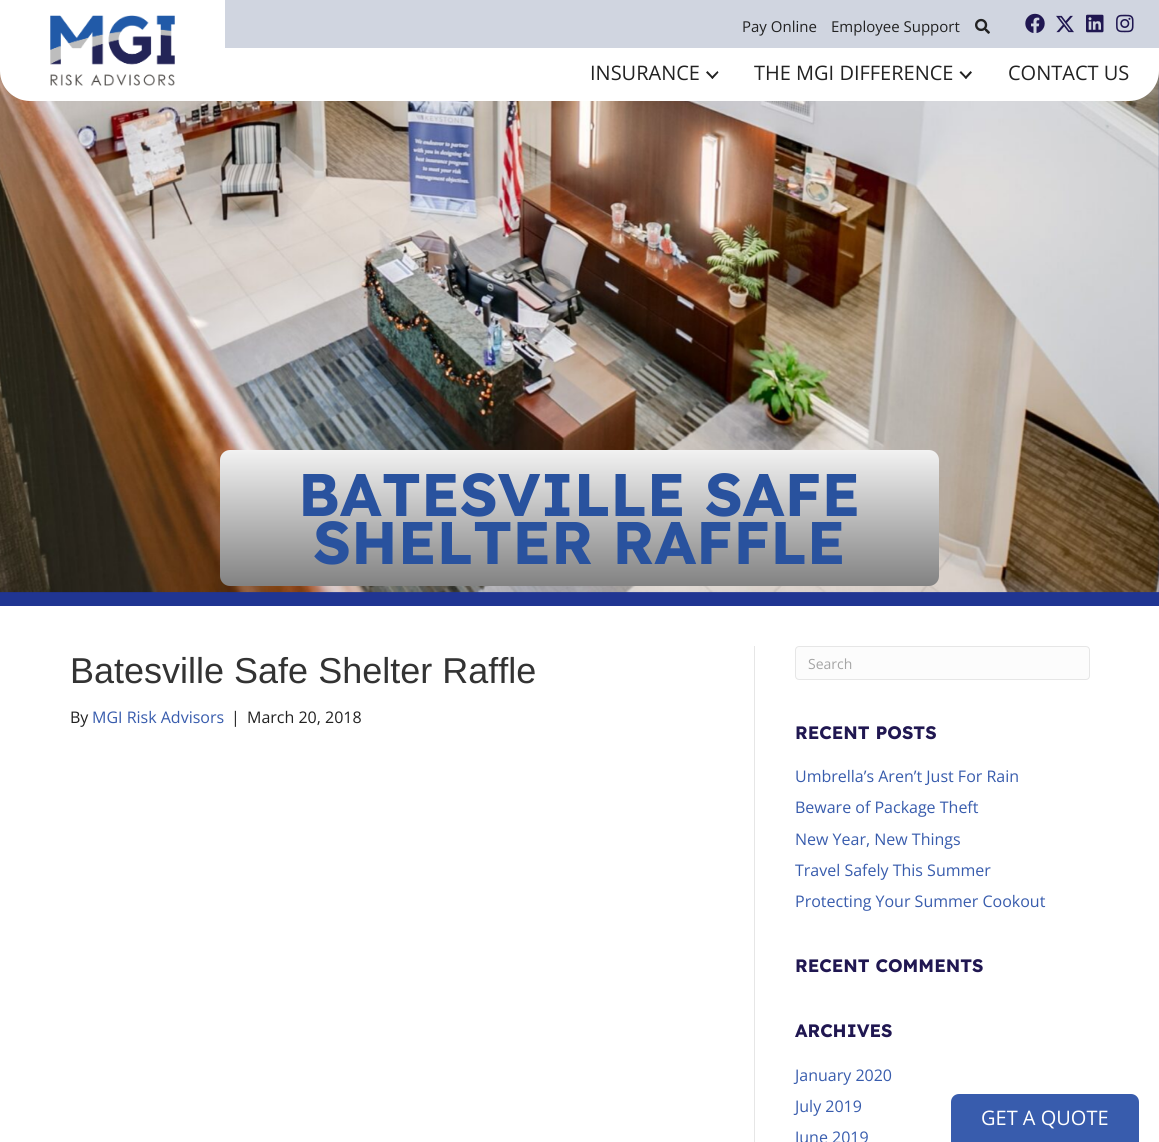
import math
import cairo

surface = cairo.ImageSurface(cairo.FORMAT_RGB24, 1159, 1142)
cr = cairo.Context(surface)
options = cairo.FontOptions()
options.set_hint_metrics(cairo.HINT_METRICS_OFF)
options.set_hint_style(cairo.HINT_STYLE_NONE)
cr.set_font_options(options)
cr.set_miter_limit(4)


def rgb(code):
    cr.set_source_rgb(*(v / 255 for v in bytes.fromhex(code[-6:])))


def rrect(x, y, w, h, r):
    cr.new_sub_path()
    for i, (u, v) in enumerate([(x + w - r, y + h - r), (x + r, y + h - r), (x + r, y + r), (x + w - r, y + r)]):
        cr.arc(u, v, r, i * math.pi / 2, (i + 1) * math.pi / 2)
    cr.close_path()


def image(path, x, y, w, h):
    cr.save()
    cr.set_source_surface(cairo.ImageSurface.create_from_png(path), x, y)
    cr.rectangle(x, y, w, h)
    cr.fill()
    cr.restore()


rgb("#ffffff")
cr.paint()
rgb("#203592")
cr.rectangle(0, 71, 1159, 535)
cr.fill()
image("img/7.png", 0, 71, 1159, 522)
rgb("#ffffff")
cr.new_path()
cr.move_to(0, 0)
cr.line_to(225, 0)
cr.line_to(225, 101)
cr.line_to(30, 101)
cr.curve_to(13.5, 101, 0, 87.5, 0, 71)
cr.close_path()
cr.fill()
image("img/1.png", 50, 15, 125, 71)
rgb("#d0d5e0")
cr.rectangle(225, 0, 934, 48)
cr.fill()
image("img/2.png", 975, 18, 15, 16)
image("img/3.png", 1025, 13, 20, 20)
image("img/4.png", 1056, 15, 18, 18)
image("img/5.png", 1086, 14, 18, 19)
image("img/6.png", 1116, 14, 18, 19)
rgb("#ffffff")
cr.new_path()
cr.move_to(225, 48)
cr.line_to(1159, 48)
cr.line_to(1159, 71)
cr.curve_to(1159, 87.5, 1145.5, 101, 1129, 101)
cr.line_to(225, 101)
cr.close_path()
cr.fill()
rgb("#222222")
cr.new_path()
cr.move_to(717.5, 71)
cr.line_to(718.5, 72.5)
cr.line_to(712.5, 79)
cr.line_to(711, 77.5)
cr.close_path()
cr.fill()
cr.new_path()
cr.move_to(707.5, 71)
cr.line_to(713.5, 77.5)
cr.line_to(712.5, 79)
cr.line_to(706, 72.5)
cr.close_path()
cr.fill()
cr.new_path()
cr.move_to(970.5, 71)
cr.line_to(972, 72.5)
cr.line_to(966, 79)
cr.line_to(964.5, 77.5)
cr.close_path()
cr.fill()
cr.new_path()
cr.move_to(961, 71)
cr.line_to(967, 77.5)
cr.line_to(966, 79)
cr.line_to(959.5, 72.5)
cr.close_path()
cr.fill()
gradient = cairo.LinearGradient(580, 450, 580, 586)
gradient.add_color_stop_rgba(0, 0.949, 0.949, 0.949, 1)
gradient.add_color_stop_rgba(1, 0.51, 0.51, 0.51, 1)
cr.set_source(gradient)
rrect(220, 450, 719, 136, 10)
cr.fill()
rgb("#e6e6e6")
cr.rectangle(754, 646, 1, 496)
cr.fill()
rgb("#fcfcfc")
rrect(795.5, 646.5, 294, 33, 3.5)
cr.fill_preserve()
rgb("#e6e6e6")
cr.set_line_width(1)
cr.stroke()
rgb("#385cad")
cr.new_path()
cr.move_to(959, 1094)
cr.line_to(1131, 1094)
cr.curve_to(1135.5, 1094, 1139, 1097.5, 1139, 1102)
cr.line_to(1139, 1142)
cr.line_to(951, 1142)
cr.line_to(951, 1102)
cr.curve_to(951, 1097.5, 954.5, 1094, 959, 1094)
cr.close_path()
cr.fill()
cr.select_font_face("Open Sans")
cr.set_font_size(15)
rgb("#222222")
cr.move_to(742, 32)
cr.show_text("Pay Online")
cr.move_to(831, 32)
cr.show_text("Employee Support")
cr.set_font_size(20)
for x, y, s in [
    (590, 80, "INSURANCE"),
    (754, 80, "THE MGI DIFFERENCE"),
    (1008, 80, "CONTACT US"),
]:
    cr.move_to(x, y)
    cr.show_text(s)
cr.select_font_face("Lexend", cairo.FONT_SLANT_NORMAL, cairo.FONT_WEIGHT_BOLD)
cr.set_font_size(60)
rgb("#29529e")
cr.move_to(298, 516)
cr.show_text("BATESVILLE SAFE")
cr.move_to(313, 564)
cr.show_text("SHELTER RAFFLE")
cr.select_font_face("Liberation Sans")
cr.set_font_size(36)
rgb("#333333")
cr.move_to(70, 683)
cr.show_text("Batesville Safe Shelter Raffle")
cr.select_font_face("Open Sans")
cr.set_font_size(16)
rgb("#222222")
cr.move_to(70, 723)
cr.show_text("By")
rgb("#385cad")
cr.move_to(92, 723)
cr.show_text("MGI Risk Advisors")
rgb("#222222")
cr.move_to(231, 723)
cr.show_text("|")
cr.move_to(247, 723)
cr.show_text("March 20, 2018")
cr.set_font_size(14)
rgb("#a5a5a5")
cr.move_to(808, 669)
cr.show_text("Search")
cr.select_font_face("Lexend", cairo.FONT_SLANT_NORMAL, cairo.FONT_WEIGHT_BOLD)
cr.set_font_size(18)
rgb("#201751")
cr.move_to(795, 739)
cr.show_text("RECENT POSTS")
cr.select_font_face("Open Sans")
cr.set_font_size(16)
rgb("#385cad")
for x, y, s in [
    (795, 782, "Umbrella’s Aren’t Just For Rain"),
    (795, 813, "Beware of Package Theft"),
    (795, 845, "New Year, New Things"),
    (795, 876, "Travel Safely This Summer"),
    (795, 907, "Protecting Your Summer Cookout"),
]:
    cr.move_to(x, y)
    cr.show_text(s)
cr.select_font_face("Lexend", cairo.FONT_SLANT_NORMAL, cairo.FONT_WEIGHT_BOLD)
cr.set_font_size(18)
rgb("#201751")
cr.move_to(795, 972)
cr.show_text("RECENT COMMENTS")
cr.move_to(795, 1037)
cr.show_text("ARCHIVES")
cr.select_font_face("Open Sans")
cr.set_font_size(16)
rgb("#385cad")
for x, y, s in [
    (795, 1081, "January 2020"),
    (795, 1112, "July 2019"),
    (795, 1143, "June 2019"),
]:
    cr.move_to(x, y)
    cr.show_text(s)
cr.set_font_size(20)
rgb("#ffffff")
cr.move_to(981, 1125)
cr.show_text("GET A QUOTE")
surface.write_to_png("page.png")
